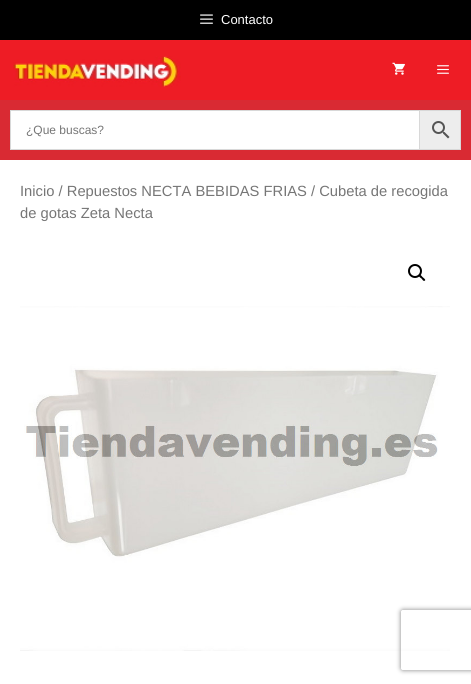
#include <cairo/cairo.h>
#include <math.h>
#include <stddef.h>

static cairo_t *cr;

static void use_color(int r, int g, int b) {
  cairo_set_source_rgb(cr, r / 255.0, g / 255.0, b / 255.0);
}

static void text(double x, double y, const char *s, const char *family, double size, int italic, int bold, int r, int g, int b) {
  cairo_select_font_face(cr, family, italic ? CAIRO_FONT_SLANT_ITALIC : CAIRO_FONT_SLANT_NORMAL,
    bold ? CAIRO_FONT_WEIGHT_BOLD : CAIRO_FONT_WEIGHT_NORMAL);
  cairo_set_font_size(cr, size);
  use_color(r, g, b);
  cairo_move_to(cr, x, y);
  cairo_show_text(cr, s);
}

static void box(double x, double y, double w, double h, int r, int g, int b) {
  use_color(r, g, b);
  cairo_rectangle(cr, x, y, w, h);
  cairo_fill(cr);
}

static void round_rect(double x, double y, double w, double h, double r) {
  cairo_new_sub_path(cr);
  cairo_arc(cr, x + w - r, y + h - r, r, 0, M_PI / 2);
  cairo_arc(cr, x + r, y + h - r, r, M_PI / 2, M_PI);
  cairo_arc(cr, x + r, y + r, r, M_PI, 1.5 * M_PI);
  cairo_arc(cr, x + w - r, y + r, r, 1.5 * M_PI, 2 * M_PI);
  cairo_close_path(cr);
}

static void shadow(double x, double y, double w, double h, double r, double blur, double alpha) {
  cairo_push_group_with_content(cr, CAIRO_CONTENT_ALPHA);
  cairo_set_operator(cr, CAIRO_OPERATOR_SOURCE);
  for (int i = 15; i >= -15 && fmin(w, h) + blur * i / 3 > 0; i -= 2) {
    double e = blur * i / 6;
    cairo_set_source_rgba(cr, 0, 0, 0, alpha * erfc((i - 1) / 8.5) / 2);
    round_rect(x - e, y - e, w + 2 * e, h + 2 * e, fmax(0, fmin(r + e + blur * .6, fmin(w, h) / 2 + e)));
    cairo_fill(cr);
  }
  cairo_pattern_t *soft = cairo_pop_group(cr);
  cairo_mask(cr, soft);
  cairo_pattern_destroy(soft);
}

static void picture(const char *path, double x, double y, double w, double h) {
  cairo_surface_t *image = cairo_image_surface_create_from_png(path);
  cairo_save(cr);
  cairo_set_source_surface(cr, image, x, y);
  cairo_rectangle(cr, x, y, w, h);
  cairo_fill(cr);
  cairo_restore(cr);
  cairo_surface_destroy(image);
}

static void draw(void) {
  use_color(255, 255, 255);
  cairo_paint(cr);
  box(0, 0, 471, 40, 0, 0, 0);
  picture("img_01.png", 200, 14, 13, 10);
  box(0, 40, 471, 60, 238, 28, 37);
  picture("img_02.png", 13, 56, 168, 31);
  picture("img_03.png", 392, 62, 13, 13);
  picture("img_04.png", 437, 65, 12, 9);
  box(0, 100, 471, 60, 217, 42, 51);
  box(11, 111, 408, 38, 255, 255, 255);
  use_color(237, 237, 237);
  cairo_rectangle(cr, 419.5, 110.5, 41, 39);
  cairo_fill_preserve(cr);
  use_color(216, 216, 216);
  cairo_set_line_width(cr, 1);
  cairo_stroke(cr);
  cairo_rectangle(cr, 10.5, 110.5, 409, 39);
  cairo_stroke(cr);
  picture("img_05.png", 432, 121, 18, 18);
  cairo_arc(cr, 415, 271, 6, 0, 2 * M_PI);
  use_color(0, 0, 0);
  cairo_set_line_width(cr, 2);
  cairo_stroke(cr);
  cairo_new_path(cr);
  cairo_move_to(cr, 419, 275);
  cairo_curve_to(cr, 420.5, 274, 422, 276.5, 422.5, 277);
  cairo_curve_to(cr, 423.5, 278, 426, 279.5, 425, 280.5);
  cairo_curve_to(cr, 423.5, 282, 422, 279, 421.5, 278.5);
  cairo_curve_to(cr, 420.5, 278, 418, 276, 419, 275);
  cairo_close_path(cr);
  cairo_fill(cr);
  picture("img_06.png", 20, 306, 430, 345);
  cairo_save(cr);
  cairo_set_fill_rule(cr, CAIRO_FILL_RULE_EVEN_ODD);
  cairo_new_path(cr);
  cairo_move_to(cr, 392, 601);
  cairo_line_to(cr, 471, 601);
  cairo_line_to(cr, 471, 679);
  cairo_line_to(cr, 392, 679);
  cairo_close_path(cr);
  cairo_move_to(cr, 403, 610);
  cairo_line_to(cr, 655, 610);
  cairo_curve_to(cr, 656, 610, 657, 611, 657, 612);
  cairo_line_to(cr, 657, 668);
  cairo_curve_to(cr, 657, 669, 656, 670, 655, 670);
  cairo_line_to(cr, 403, 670);
  cairo_curve_to(cr, 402, 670, 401, 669, 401, 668);
  cairo_line_to(cr, 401, 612);
  cairo_curve_to(cr, 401, 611, 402, 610, 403, 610);
  cairo_close_path(cr);
  cairo_clip(cr);
  use_color(128, 128, 128);
  shadow(401, 610, 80, 60, 2, 2.5, 1);
  cairo_restore(cr);
  text(221, 24, "Contacto", "Liberation Sans", 13, 0, 0, 255, 255, 255);
  text(26, 134, "¿Que buscas?", "Liberation Sans", 12, 0, 0, 118, 118, 118);
  text(20, 196, "Inicio / Repuestos NECTA BEBIDAS FRIAS / Cubeta de recogida", "Liberation Sans", 14.75, 0, 0, 118, 118, 118);
  text(20, 218, "de gotas Zeta Necta", "Liberation Sans", 14.75, 0, 0, 118, 118, 118);
}

int main(void) {
  cairo_surface_t *surface = cairo_image_surface_create(CAIRO_FORMAT_RGB24, 471, 684);
  cr = cairo_create(surface);
  cairo_font_options_t *options = cairo_font_options_create();
  cairo_font_options_set_hint_metrics(options, CAIRO_HINT_METRICS_OFF);
  cairo_font_options_set_hint_style(options, CAIRO_HINT_STYLE_NONE);
  cairo_set_font_options(cr, options);
  cairo_set_miter_limit(cr, 4);
  draw();
  cairo_surface_write_to_png(surface, "out.png");
  cairo_font_options_destroy(options);
  cairo_destroy(cr);
  cairo_surface_destroy(surface);
  return 0;
}
